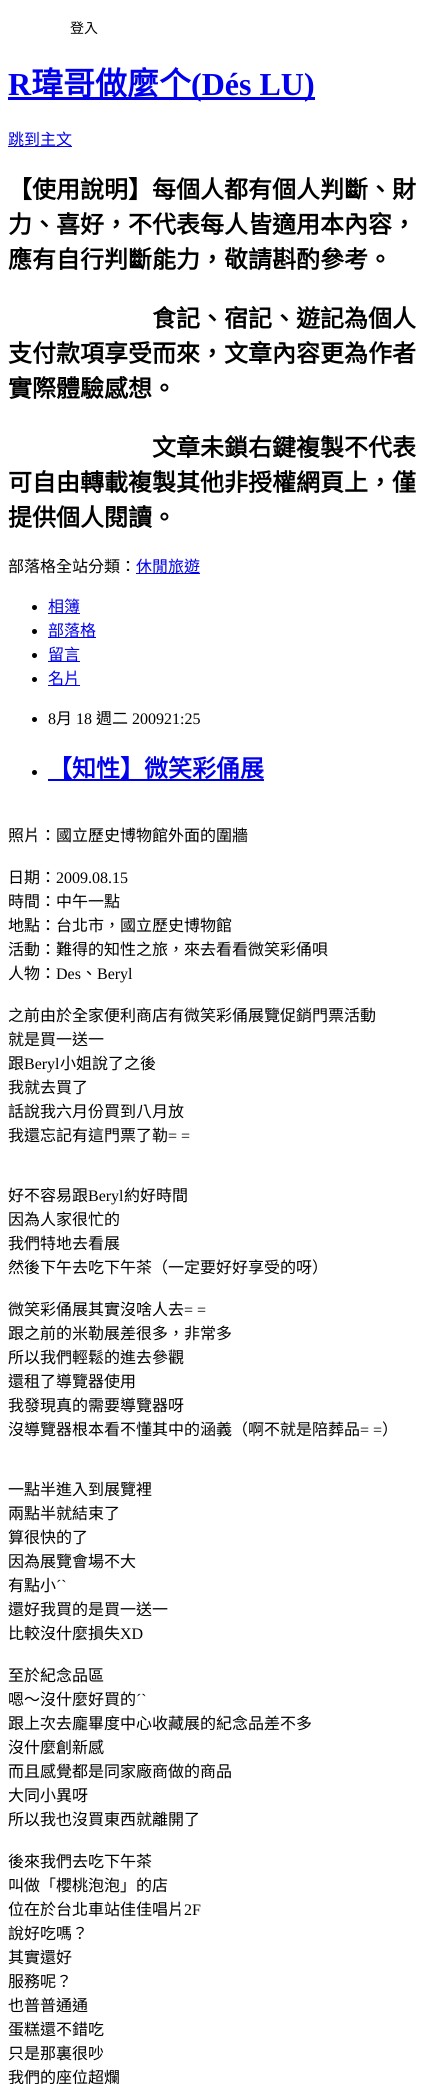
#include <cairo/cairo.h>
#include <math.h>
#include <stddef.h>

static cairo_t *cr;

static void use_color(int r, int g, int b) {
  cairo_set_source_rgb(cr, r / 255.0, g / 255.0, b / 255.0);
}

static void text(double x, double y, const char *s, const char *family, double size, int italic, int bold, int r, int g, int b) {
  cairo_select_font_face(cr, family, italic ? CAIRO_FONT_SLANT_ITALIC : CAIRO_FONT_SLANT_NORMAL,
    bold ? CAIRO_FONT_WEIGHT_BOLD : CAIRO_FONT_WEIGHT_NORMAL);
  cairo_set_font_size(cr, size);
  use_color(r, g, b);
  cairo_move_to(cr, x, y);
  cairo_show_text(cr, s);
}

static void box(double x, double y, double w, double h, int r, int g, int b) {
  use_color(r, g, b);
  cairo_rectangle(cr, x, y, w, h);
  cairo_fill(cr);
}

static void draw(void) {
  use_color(255, 255, 255);
  cairo_paint(cr);
  box(8, 97, 307, 3, 0, 0, 238);
  box(8, 146, 64, 1, 0, 0, 238);
  box(136, 573, 64, 1, 0, 0, 238);
  use_color(0, 0, 0);
  cairo_arc(cr, 34.5, 607.5, 2.5, 0, 2 * M_PI);
  cairo_fill(cr);
  box(48, 613, 32, 1, 0, 0, 238);
  use_color(0, 0, 0);
  cairo_arc(cr, 34.5, 631.5, 2.5, 0, 2 * M_PI);
  cairo_fill(cr);
  box(48, 637, 48, 1, 0, 0, 238);
  use_color(0, 0, 0);
  cairo_arc(cr, 34.5, 655.5, 2.5, 0, 2 * M_PI);
  cairo_fill(cr);
  box(48, 661, 32, 1, 0, 0, 238);
  use_color(0, 0, 0);
  cairo_arc(cr, 34.5, 679.5, 2.5, 0, 2 * M_PI);
  cairo_fill(cr);
  box(48, 685, 32, 1, 0, 0, 238);
  use_color(0, 0, 0);
  cairo_arc(cr, 34.5, 719.5, 2.5, 0, 2 * M_PI);
  cairo_fill(cr);
  cairo_arc(cr, 34.5, 772.5, 2.5, 0, 2 * M_PI);
  cairo_fill(cr);
  box(48, 779, 216, 2, 0, 0, 238);
  text(70, 33, "登入", "Noto Sans CJK TC", 14, 0, 0, 0, 0, 0);
  text(8, 95, "R", "Liberation Serif", 32, 0, 1, 0, 0, 238);
  text(31, 95, "瑋哥做麼个", "Noto Sans CJK TC", 32, 0, 1, 0, 0, 238);
  text(191, 95, "(Dés LU)", "Liberation Serif", 32, 0, 1, 0, 0, 238);
  text(8, 145, "跳到主文", "Noto Sans CJK TC", 16, 0, 0, 0, 0, 238);
  text(8, 198, "【使用說明】每個人都有個人判斷、財", "Noto Sans CJK TC", 24, 0, 1, 0, 0, 0);
  text(8, 233, "力、喜好，不代表每人皆適用本內容，", "Noto Sans CJK TC", 24, 0, 1, 0, 0, 0);
  text(8, 268, "應有自行判斷能力，敬請斟酌參考。", "Noto Sans CJK TC", 24, 0, 1, 0, 0, 0);
  text(152, 327, "食記、宿記、遊記為個人", "Noto Sans CJK TC", 24, 0, 1, 0, 0, 0);
  text(8, 362, "支付款項享受而來，文章內容更為作者", "Noto Sans CJK TC", 24, 0, 1, 0, 0, 0);
  text(8, 397, "實際體驗感想。", "Noto Sans CJK TC", 24, 0, 1, 0, 0, 0);
  text(152, 456, "文章未鎖右鍵複製不代表", "Noto Sans CJK TC", 24, 0, 1, 0, 0, 0);
  text(8, 491, "可自由轉載複製其他非授權網頁上，僅", "Noto Sans CJK TC", 24, 0, 1, 0, 0, 0);
  text(8, 526, "提供個人閱讀。", "Noto Sans CJK TC", 24, 0, 1, 0, 0, 0);
  text(8, 572, "部落格全站分類：", "Noto Sans CJK TC", 16, 0, 0, 0, 0, 0);
  text(136, 572, "休閒旅遊", "Noto Sans CJK TC", 16, 0, 0, 0, 0, 238);
  text(48, 612, "相簿", "Noto Sans CJK TC", 16, 0, 0, 0, 0, 238);
  text(48, 636, "部落格", "Noto Sans CJK TC", 16, 0, 0, 0, 0, 238);
  text(48, 660, "留言", "Noto Sans CJK TC", 16, 0, 0, 0, 0, 238);
  text(48, 684, "名片", "Noto Sans CJK TC", 16, 0, 0, 0, 0, 238);
  text(48, 724, "8", "Liberation Serif", 16, 0, 0, 0, 0, 0);
  text(56, 724, "月", "Noto Sans CJK TC", 16, 0, 0, 0, 0, 0);
  text(76, 724, "18", "Liberation Serif", 16, 0, 0, 0, 0, 0);
  text(96, 724, "週二", "Noto Sans CJK TC", 16, 0, 0, 0, 0, 0);
  text(132, 724, "200921:25", "Liberation Serif", 16, 0, 0, 0, 0, 0);
  text(48, 777, "【知性】微笑彩俑展", "Noto Sans CJK TC", 24, 0, 1, 0, 0, 238);
  text(8, 841, "照片：國立歷史博物館外面的圍牆", "Noto Sans CJK TC", 16, 0, 0, 0, 0, 0);
  text(8, 883, "日期：", "Noto Sans CJK TC", 16, 0, 0, 0, 0, 0);
  text(56, 883, "2009.08.15", "Liberation Serif", 16, 0, 0, 0, 0, 0);
  text(8, 907, "時間：中午一點", "Noto Sans CJK TC", 16, 0, 0, 0, 0, 0);
  text(8, 931, "地點：台北市，國立歷史博物館", "Noto Sans CJK TC", 16, 0, 0, 0, 0, 0);
  text(8, 955, "活動：難得的知性之旅，來去看看微笑彩俑唄", "Noto Sans CJK TC", 16, 0, 0, 0, 0, 0);
  text(8, 979, "人物：", "Noto Sans CJK TC", 16, 0, 0, 0, 0, 0);
  text(56, 979, "Des", "Liberation Serif", 16, 0, 0, 0, 0, 0);
  text(81, 979, "、", "Noto Sans CJK TC", 16, 0, 0, 0, 0, 0);
  text(97, 979, "Beryl", "Liberation Serif", 16, 0, 0, 0, 0, 0);
  text(8, 1021, "之前由於全家便利商店有微笑彩俑展覽促銷門票活動", "Noto Sans CJK TC", 16, 0, 0, 0, 0, 0);
  text(8, 1045, "就是買一送一", "Noto Sans CJK TC", 16, 0, 0, 0, 0, 0);
  text(8, 1069, "跟", "Noto Sans CJK TC", 16, 0, 0, 0, 0, 0);
  text(24, 1069, "Beryl", "Liberation Serif", 16, 0, 0, 0, 0, 0);
  text(60, 1069, "小姐說了之後", "Noto Sans CJK TC", 16, 0, 0, 0, 0, 0);
  text(8, 1093, "我就去買了", "Noto Sans CJK TC", 16, 0, 0, 0, 0, 0);
  text(8, 1117, "話說我六月份買到八月放", "Noto Sans CJK TC", 16, 0, 0, 0, 0, 0);
  text(8, 1141, "我還忘記有這門票了勒", "Noto Sans CJK TC", 16, 0, 0, 0, 0, 0);
  text(168, 1141, "= =", "Liberation Serif", 16, 0, 0, 0, 0, 0);
  text(8, 1201, "好不容易跟", "Noto Sans CJK TC", 16, 0, 0, 0, 0, 0);
  text(88, 1201, "Beryl", "Liberation Serif", 16, 0, 0, 0, 0, 0);
  text(124, 1201, "約好時間", "Noto Sans CJK TC", 16, 0, 0, 0, 0, 0);
  text(8, 1225, "因為人家很忙的", "Noto Sans CJK TC", 16, 0, 0, 0, 0, 0);
  text(8, 1249, "我們特地去看展", "Noto Sans CJK TC", 16, 0, 0, 0, 0, 0);
  text(8, 1273, "然後下午去吃下午茶（一定要好好享受的呀）", "Noto Sans CJK TC", 16, 0, 0, 0, 0, 0);
  text(8, 1315, "微笑彩俑展其實沒啥人去", "Noto Sans CJK TC", 16, 0, 0, 0, 0, 0);
  text(184, 1315, "= =", "Liberation Serif", 16, 0, 0, 0, 0, 0);
  text(8, 1339, "跟之前的米勒展差很多，非常多", "Noto Sans CJK TC", 16, 0, 0, 0, 0, 0);
  text(8, 1363, "所以我們輕鬆的進去參觀", "Noto Sans CJK TC", 16, 0, 0, 0, 0, 0);
  text(8, 1387, "還租了導覽器使用", "Noto Sans CJK TC", 16, 0, 0, 0, 0, 0);
  text(8, 1411, "我發現真的需要導覽器呀", "Noto Sans CJK TC", 16, 0, 0, 0, 0, 0);
  text(8, 1435, "沒導覽器根本看不懂其中的涵義（啊不就是陪葬品", "Noto Sans CJK TC", 16, 0, 0, 0, 0, 0);
  text(360, 1435, "= =", "Liberation Serif", 16, 0, 0, 0, 0, 0);
  text(382, 1435, "）", "Noto Sans CJK TC", 16, 0, 0, 0, 0, 0);
  text(8, 1495, "一點半進入到展覽裡", "Noto Sans CJK TC", 16, 0, 0, 0, 0, 0);
  text(8, 1519, "兩點半就結束了", "Noto Sans CJK TC", 16, 0, 0, 0, 0, 0);
  text(8, 1543, "算很快的了", "Noto Sans CJK TC", 16, 0, 0, 0, 0, 0);
  text(8, 1567, "因為展覽會場不大", "Noto Sans CJK TC", 16, 0, 0, 0, 0, 0);
  text(8, 1591, "有點小", "Noto Sans CJK TC", 16, 0, 0, 0, 0, 0);
  text(56, 1591, "ˊˋ", "Liberation Serif", 16, 0, 0, 0, 0, 0);
  text(8, 1615, "還好我買的是買一送一", "Noto Sans CJK TC", 16, 0, 0, 0, 0, 0);
  text(8, 1639, "比較沒什麼損失", "Noto Sans CJK TC", 16, 0, 0, 0, 0, 0);
  text(120, 1639, "XD", "Liberation Serif", 16, 0, 0, 0, 0, 0);
  text(8, 1681, "至於紀念品區", "Noto Sans CJK TC", 16, 0, 0, 0, 0, 0);
  text(8, 1705, "嗯～沒什麼好買的", "Noto Sans CJK TC", 16, 0, 0, 0, 0, 0);
  text(136, 1705, "ˊˋ", "Liberation Serif", 16, 0, 0, 0, 0, 0);
  text(8, 1729, "跟上次去龐畢度中心收藏展的紀念品差不多", "Noto Sans CJK TC", 16, 0, 0, 0, 0, 0);
  text(8, 1753, "沒什麼創新感", "Noto Sans CJK TC", 16, 0, 0, 0, 0, 0);
  text(8, 1777, "而且感覺都是同家廠商做的商品", "Noto Sans CJK TC", 16, 0, 0, 0, 0, 0);
  text(8, 1801, "大同小異呀", "Noto Sans CJK TC", 16, 0, 0, 0, 0, 0);
  text(8, 1825, "所以我也沒買東西就離開了", "Noto Sans CJK TC", 16, 0, 0, 0, 0, 0);
  text(8, 1867, "後來我們去吃下午茶", "Noto Sans CJK TC", 16, 0, 0, 0, 0, 0);
  text(8, 1891, "叫做「櫻桃泡泡」的店", "Noto Sans CJK TC", 16, 0, 0, 0, 0, 0);
  text(8, 1915, "位在於台北車站佳佳唱片", "Noto Sans CJK TC", 16, 0, 0, 0, 0, 0);
  text(184, 1915, "2F", "Liberation Serif", 16, 0, 0, 0, 0, 0);
  text(8, 1939, "說好吃嗎？", "Noto Sans CJK TC", 16, 0, 0, 0, 0, 0);
  text(8, 1963, "其實還好", "Noto Sans CJK TC", 16, 0, 0, 0, 0, 0);
  text(8, 1987, "服務呢？", "Noto Sans CJK TC", 16, 0, 0, 0, 0, 0);
  text(8, 2011, "也普普通通", "Noto Sans CJK TC", 16, 0, 0, 0, 0, 0);
  text(8, 2035, "蛋糕還不錯吃", "Noto Sans CJK TC", 16, 0, 0, 0, 0, 0);
  text(8, 2059, "只是那裏很吵", "Noto Sans CJK TC", 16, 0, 0, 0, 0, 0);
  text(8, 2083, "我們的座位超爛", "Noto Sans CJK TC", 16, 0, 0, 0, 0, 0);
}

int main(void) {
  cairo_surface_t *surface = cairo_image_surface_create(CAIRO_FORMAT_RGB24, 445, 2084);
  cr = cairo_create(surface);
  cairo_font_options_t *options = cairo_font_options_create();
  cairo_font_options_set_hint_metrics(options, CAIRO_HINT_METRICS_OFF);
  cairo_font_options_set_hint_style(options, CAIRO_HINT_STYLE_NONE);
  cairo_set_font_options(cr, options);
  cairo_set_miter_limit(cr, 4);
  draw();
  cairo_surface_write_to_png(surface, "out.png");
  cairo_font_options_destroy(options);
  cairo_destroy(cr);
  cairo_surface_destroy(surface);
  return 0;
}
